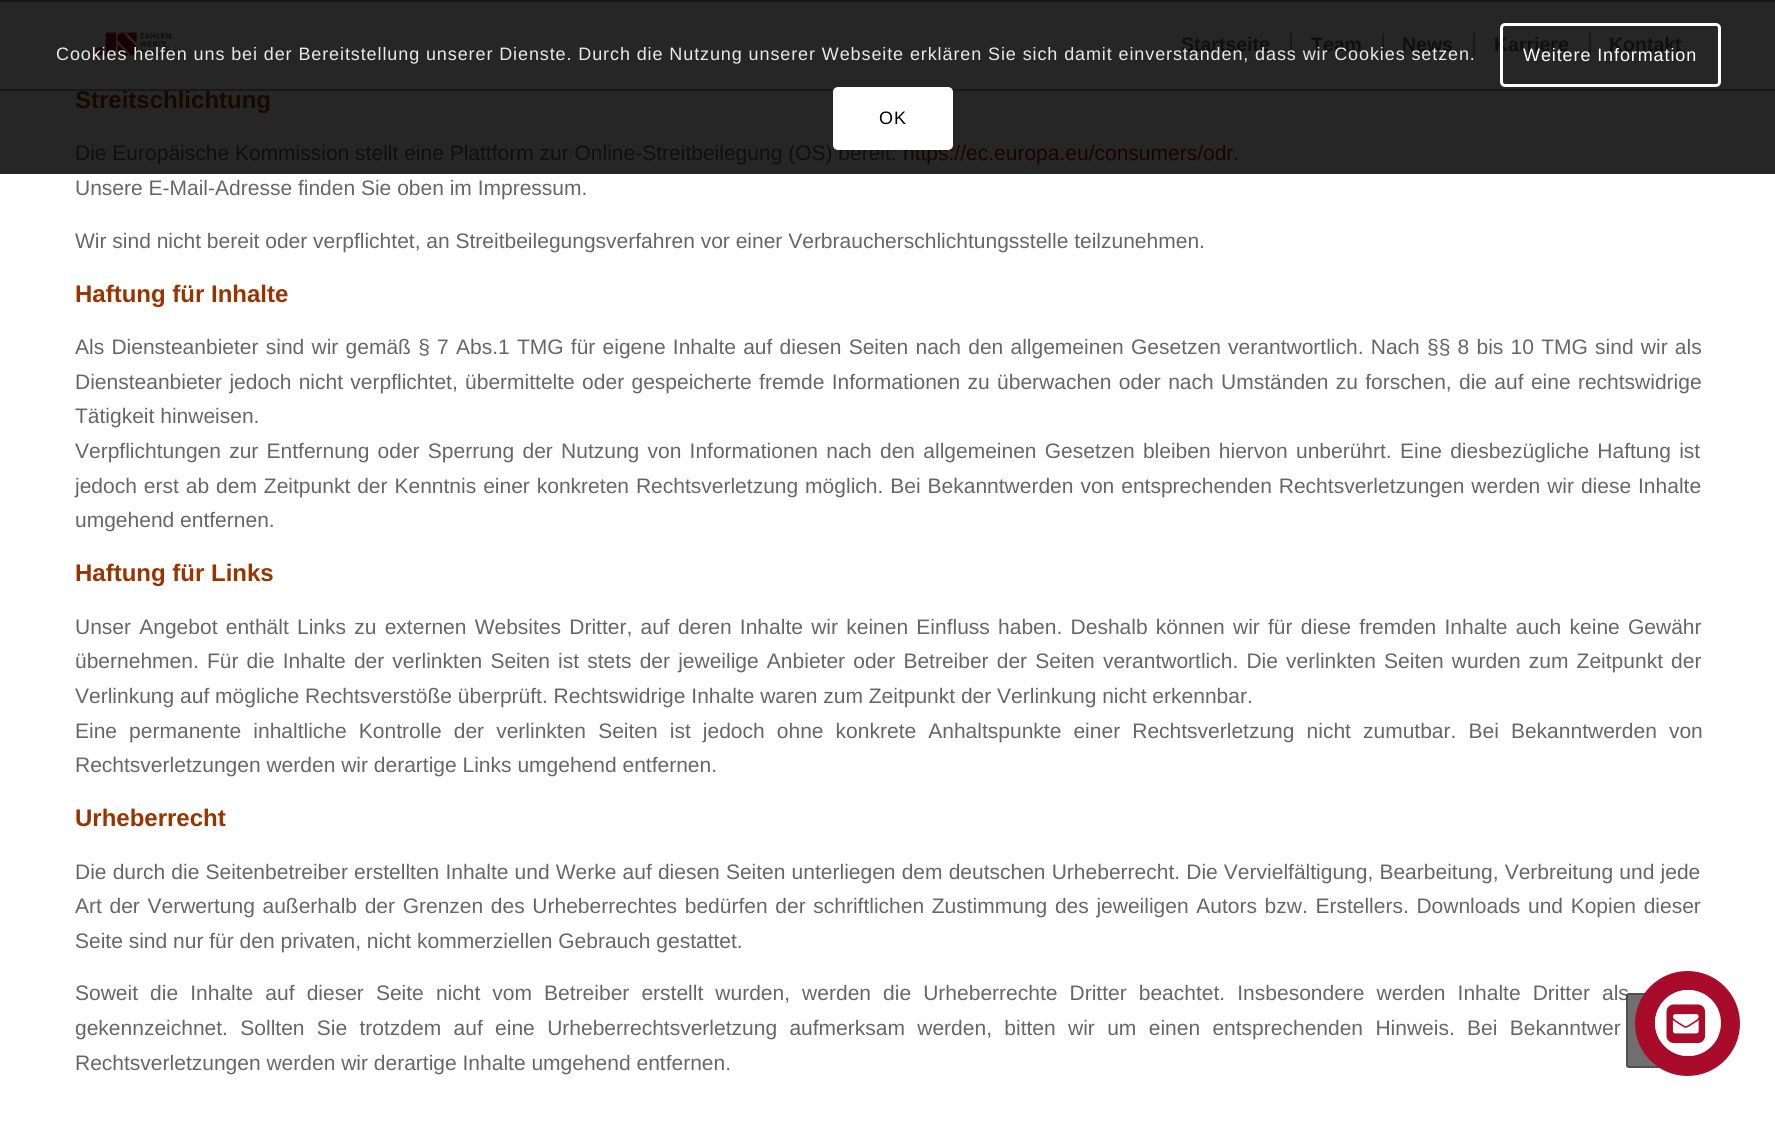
#include <cairo/cairo.h>
#include <math.h>
#include <stddef.h>

static cairo_t *cr;

static void use_color(int r, int g, int b) {
  cairo_set_source_rgb(cr, r / 255.0, g / 255.0, b / 255.0);
}

static void text(double x, double y, const char *s, const char *family, double size, int italic, int bold, int r, int g, int b) {
  cairo_select_font_face(cr, family, italic ? CAIRO_FONT_SLANT_ITALIC : CAIRO_FONT_SLANT_NORMAL,
    bold ? CAIRO_FONT_WEIGHT_BOLD : CAIRO_FONT_WEIGHT_NORMAL);
  cairo_set_font_size(cr, size);
  use_color(r, g, b);
  cairo_move_to(cr, x, y);
  cairo_show_text(cr, s);
}

static void spaced_text(double x, double y, const char *s, double letter, double word) {
  cairo_move_to(cr, x, y);
  while (*s) {
    char ch[5] = {0};
    int n = 0;
    do ch[n++] = *s++; while ((*s & 0xC0) == 0x80);
    cairo_show_text(cr, ch);
    cairo_rel_move_to(cr, letter + word * (*ch == ' '), 0);
  }
}

static void box(double x, double y, double w, double h, int r, int g, int b) {
  use_color(r, g, b);
  cairo_rectangle(cr, x, y, w, h);
  cairo_fill(cr);
}

static void round_rect(double x, double y, double w, double h, double r) {
  cairo_new_sub_path(cr);
  cairo_arc(cr, x + w - r, y + h - r, r, 0, M_PI / 2);
  cairo_arc(cr, x + r, y + h - r, r, M_PI / 2, M_PI);
  cairo_arc(cr, x + r, y + r, r, M_PI, 1.5 * M_PI);
  cairo_arc(cr, x + w - r, y + r, r, 1.5 * M_PI, 2 * M_PI);
  cairo_close_path(cr);
}

static void picture(const char *path, double x, double y, double w, double h) {
  cairo_surface_t *image = cairo_image_surface_create_from_png(path);
  cairo_save(cr);
  cairo_set_source_surface(cr, image, x, y);
  cairo_rectangle(cr, x, y, w, h);
  cairo_fill(cr);
  cairo_restore(cr);
  cairo_surface_destroy(image);
}

static void draw(void) {
  use_color(255, 255, 255);
  cairo_paint(cr);
  box(0, 0, 1775, 2, 23, 23, 23);
  box(0, 2, 1775, 87, 38, 38, 38);
  picture("img_01.png", 94, 32, 85, 24);
  box(1290, 33, 2, 23, 23, 23, 23);
  box(1382, 33, 2, 23, 23, 23, 23);
  box(1473, 33, 2, 23, 23, 23, 23);
  box(1589, 33, 2, 23, 23, 23, 23);
  box(0, 91, 1775, 83, 38, 38, 38);
  text(1181, 51, "Startseite", "Liberation Sans", 19.5, 0, 1, 15, 15, 15);
  text(1311, 51, "Team", "Liberation Sans", 19.5, 0, 1, 15, 15, 15);
  text(1402, 51, "News", "Liberation Sans", 19.5, 0, 1, 15, 15, 15);
  text(1494, 51, "Karriere", "Liberation Sans", 19.5, 0, 1, 15, 15, 15);
  text(1609, 51, "Kontakt", "Liberation Sans", 19.5, 0, 1, 15, 15, 15);
  text(75, 108, "Streitschlichtung", "Liberation Sans", 24, 0, 1, 23, 8, 0);
  box(0, 89, 1775, 2, 23, 23, 23);
  text(75, 160, "Die Europäische Kommission stellt eine Plattform zur Online-Streitbeilegung (OS) bereit:", "Liberation Sans", 21, 0, 0, 15, 15, 15);
  text(903, 160, "https://ec.europa.eu/consumers/odr", "Liberation Sans", 21, 0, 0, 25, 2, 6);
  text(1233, 160, ".", "Liberation Sans", 21, 0, 0, 15, 15, 15);
  text(75, 195, "Unsere E-Mail-Adresse finden Sie oben im Impressum.", "Liberation Sans", 21, 0, 0, 102, 102, 102);
  text(75, 248, "Wir sind nicht bereit oder verpflichtet, an Streitbeilegungsverfahren vor einer Verbraucherschlichtungsstelle teilzunehmen.", "Liberation Sans", 21, 0, 0, 102, 102, 102);
  text(75, 302, "Haftung für Inhalte", "Liberation Sans", 24, 0, 1, 153, 51, 0);
  cairo_select_font_face(cr, "Liberation Sans", CAIRO_FONT_SLANT_NORMAL, CAIRO_FONT_WEIGHT_NORMAL);
  cairo_set_font_size(cr, 21);
  use_color(102, 102, 102);
  spaced_text(75, 354, "Als Diensteanbieter sind wir gemäß § 7 Abs.1 TMG für eigene Inhalte auf diesen Seiten nach den allgemeinen Gesetzen verantwortlich. Nach §§ 8 bis 10 TMG sind wir als", 0, 1.4);
  spaced_text(75, 389, "Diensteanbieter jedoch nicht verpflichtet, übermittelte oder gespeicherte fremde Informationen zu überwachen oder nach Umständen zu forschen, die auf eine rechtswidrige", 0, 1.5);
  text(75, 423, "Tätigkeit hinweisen.", "Liberation Sans", 21, 0, 0, 102, 102, 102);
  spaced_text(75, 458, "Verpflichtungen zur Entfernung oder Sperrung der Nutzung von Informationen nach den allgemeinen Gesetzen bleiben hiervon unberührt. Eine diesbezügliche Haftung ist", 0, 2.4);
  spaced_text(75, 493, "jedoch erst ab dem Zeitpunkt der Kenntnis einer konkreten Rechtsverletzung möglich. Bei Bekanntwerden von entsprechenden Rechtsverletzungen werden wir diese Inhalte", 0, 1.1);
  text(75, 527, "umgehend entfernen.", "Liberation Sans", 21, 0, 0, 102, 102, 102);
  text(75, 581, "Haftung für Links", "Liberation Sans", 24, 0, 1, 153, 51, 0);
  cairo_select_font_face(cr, "Liberation Sans", CAIRO_FONT_SLANT_NORMAL, CAIRO_FONT_WEIGHT_NORMAL);
  cairo_set_font_size(cr, 21);
  use_color(102, 102, 102);
  spaced_text(75, 634, "Unser Angebot enthält Links zu externen Websites Dritter, auf deren Inhalte wir keinen Einfluss haben. Deshalb können wir für diese fremden Inhalte auch keine Gewähr", 0, 2.4);
  spaced_text(75, 668, "übernehmen. Für die Inhalte der verlinkten Seiten ist stets der jeweilige Anbieter oder Betreiber der Seiten verantwortlich. Die verlinkten Seiten wurden zum Zeitpunkt der", 0, 2.3);
  text(75, 703, "Verlinkung auf mögliche Rechtsverstöße überprüft. Rechtswidrige Inhalte waren zum Zeitpunkt der Verlinkung nicht erkennbar.", "Liberation Sans", 21, 0, 0, 102, 102, 102);
  spaced_text(75, 738, "Eine permanente inhaltliche Kontrolle der verlinkten Seiten ist jedoch ohne konkrete Anhaltspunkte einer Rechtsverletzung nicht zumutbar. Bei Bekanntwerden von", 0, 6.25);
  text(75, 772, "Rechtsverletzungen werden wir derartige Links umgehend entfernen.", "Liberation Sans", 21, 0, 0, 102, 102, 102);
  text(75, 826, "Urheberrecht", "Liberation Sans", 24, 0, 1, 153, 51, 0);
  cairo_select_font_face(cr, "Liberation Sans", CAIRO_FONT_SLANT_NORMAL, CAIRO_FONT_WEIGHT_NORMAL);
  cairo_set_font_size(cr, 21);
  use_color(102, 102, 102);
  spaced_text(75, 879, "Die durch die Seitenbetreiber erstellten Inhalte und Werke auf diesen Seiten unterliegen dem deutschen Urheberrecht. Die Vervielfältigung, Bearbeitung, Verbreitung und jede", 0, 0.3);
  spaced_text(75, 913, "Art der Verwertung außerhalb der Grenzen des Urheberrechtes bedürfen der schriftlichen Zustimmung des jeweiligen Autors bzw. Erstellers. Downloads und Kopien dieser", 0, 1.8);
  text(75, 948, "Seite sind nur für den privaten, nicht kommerziellen Gebrauch gestattet.", "Liberation Sans", 21, 0, 0, 102, 102, 102);
  spaced_text(75, 1000, "Soweit die Inhalte auf dieser Seite nicht vom Betreiber erstellt wurden, werden die Urheberrechte Dritter beachtet. Insbesondere werden Inhalte Dritter als", 0, 6.25);
  spaced_text(75, 1035, "gekennzeichnet. Sollten Sie trotzdem auf eine Urheberrechtsverletzung aufmerksam werden, bitten wir um einen entsprechenden Hinweis. Bei Bekanntwer", 0, 6.5);
  text(75, 1070, "Rechtsverletzungen werden wir derartige Inhalte umgehend entfernen.", "Liberation Sans", 21, 0, 0, 102, 102, 102);
  cairo_set_font_size(cr, 18);
  use_color(233, 233, 233);
  spaced_text(56, 60, "Cookies helfen uns bei der Bereitstellung unserer Dienste. Durch die Nutzung unserer Webseite erklären Sie sich damit einverstanden, dass wir Cookies setzen.", 0.9, 0);
  round_rect(1501.5, 24.5, 218, 61, 3.5);
  use_color(255, 255, 255);
  cairo_set_line_width(cr, 3);
  cairo_stroke(cr);
  spaced_text(1523, 61, "Weitere Information", 0.9, 0);
  round_rect(833, 87, 120, 63, 5);
  cairo_fill(cr);
  use_color(0, 0, 0);
  spaced_text(879, 124, "OK", 0.9, 0);
  cairo_set_source_rgba(cr, 0.2, 0.2, 0.2, 0.7);
  round_rect(1626, 993, 75, 75, 3);
  cairo_fill(cr);
  round_rect(1627, 994, 73, 73, 2);
  cairo_set_source_rgba(cr, 0.267, 0.267, 0.267, 0.7);
  cairo_set_line_width(cr, 2);
  cairo_stroke(cr);
  use_color(169, 12, 43);
  cairo_arc(cr, 1687.5, 1023.5, 52.5, 0, 2 * M_PI);
  cairo_fill(cr);
  use_color(255, 255, 255);
  cairo_arc(cr, 1688, 1023, 33, 0, 2 * M_PI);
  cairo_fill(cr);
  cairo_save(cr);
  round_rect(1655, 990, 66, 66, 33);
  cairo_clip(cr);
  cairo_new_path(cr);
  cairo_move_to(cr, 1688, 990);
  cairo_line_to(cr, 1718, 990);
  cairo_line_to(cr, 1718, 1056);
  cairo_line_to(cr, 1688, 1056);
  cairo_curve_to(cr, 1670, 1056, 1655, 1041, 1655, 1023);
  cairo_curve_to(cr, 1655, 1005, 1670, 990, 1688, 990);
  cairo_close_path(cr);
  cairo_fill(cr);
  cairo_restore(cr);
  picture("img_02.png", 1666, 1004, 40, 40);
}

int main(void) {
  cairo_surface_t *surface = cairo_image_surface_create(CAIRO_FORMAT_RGB24, 1775, 1143);
  cr = cairo_create(surface);
  cairo_font_options_t *options = cairo_font_options_create();
  cairo_font_options_set_hint_metrics(options, CAIRO_HINT_METRICS_OFF);
  cairo_font_options_set_hint_style(options, CAIRO_HINT_STYLE_NONE);
  cairo_set_font_options(cr, options);
  cairo_set_miter_limit(cr, 4);
  draw();
  cairo_surface_write_to_png(surface, "out.png");
  cairo_font_options_destroy(options);
  cairo_destroy(cr);
  cairo_surface_destroy(surface);
  return 0;
}
